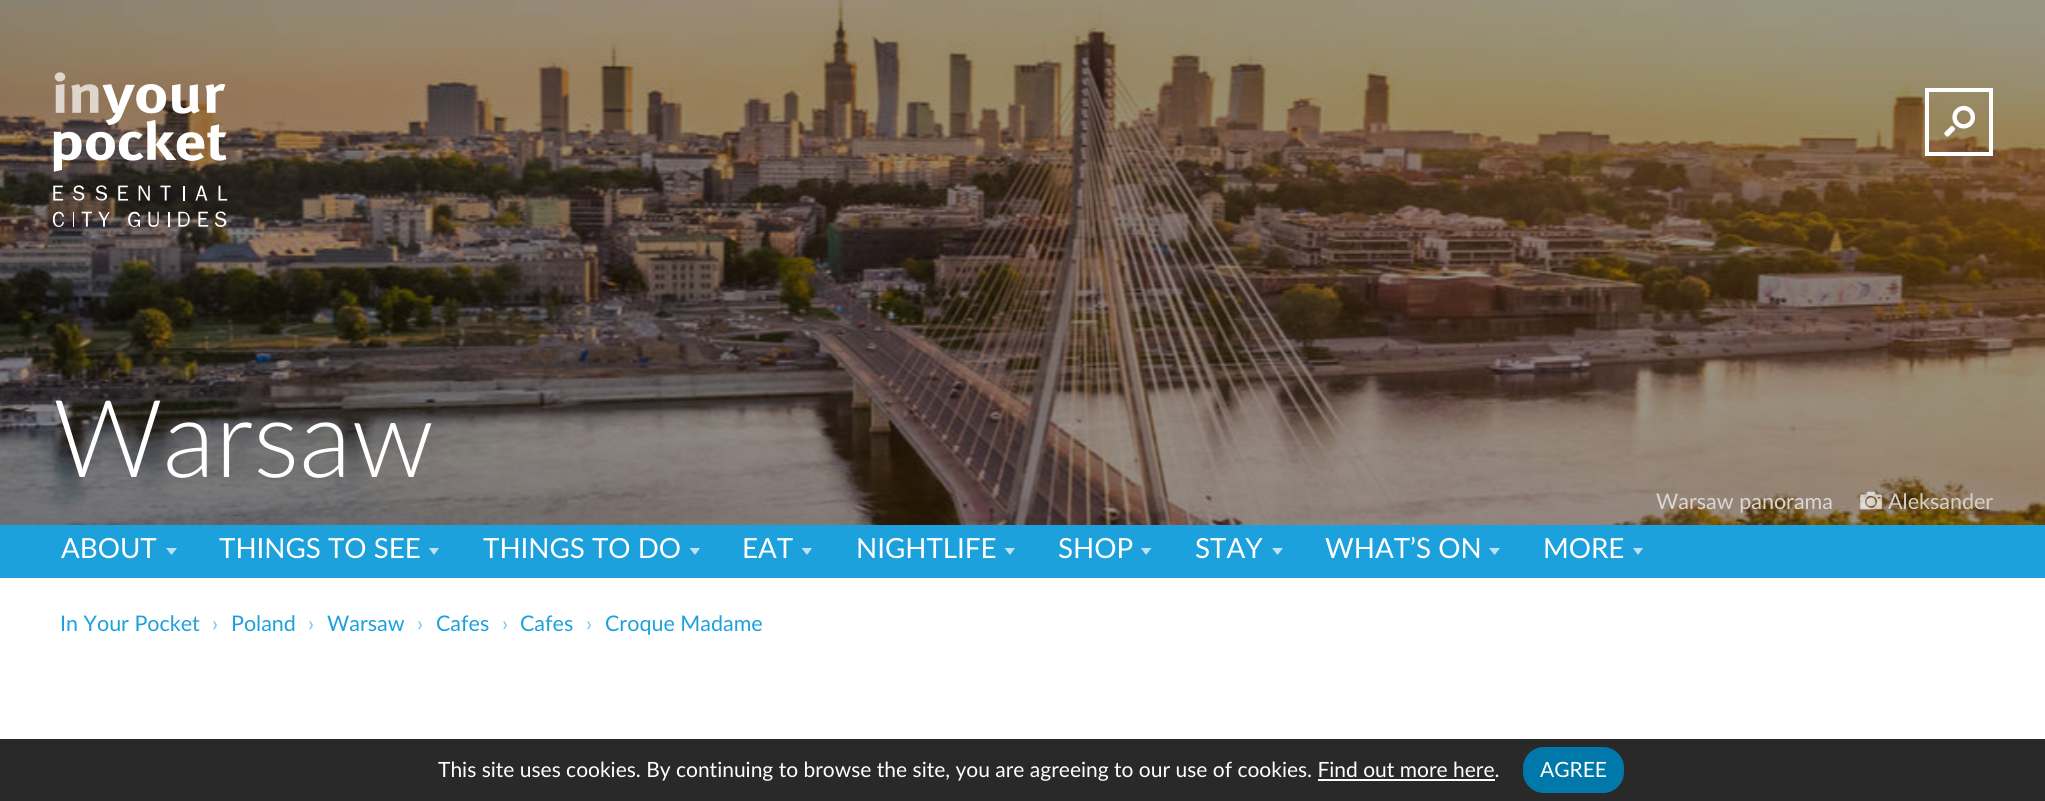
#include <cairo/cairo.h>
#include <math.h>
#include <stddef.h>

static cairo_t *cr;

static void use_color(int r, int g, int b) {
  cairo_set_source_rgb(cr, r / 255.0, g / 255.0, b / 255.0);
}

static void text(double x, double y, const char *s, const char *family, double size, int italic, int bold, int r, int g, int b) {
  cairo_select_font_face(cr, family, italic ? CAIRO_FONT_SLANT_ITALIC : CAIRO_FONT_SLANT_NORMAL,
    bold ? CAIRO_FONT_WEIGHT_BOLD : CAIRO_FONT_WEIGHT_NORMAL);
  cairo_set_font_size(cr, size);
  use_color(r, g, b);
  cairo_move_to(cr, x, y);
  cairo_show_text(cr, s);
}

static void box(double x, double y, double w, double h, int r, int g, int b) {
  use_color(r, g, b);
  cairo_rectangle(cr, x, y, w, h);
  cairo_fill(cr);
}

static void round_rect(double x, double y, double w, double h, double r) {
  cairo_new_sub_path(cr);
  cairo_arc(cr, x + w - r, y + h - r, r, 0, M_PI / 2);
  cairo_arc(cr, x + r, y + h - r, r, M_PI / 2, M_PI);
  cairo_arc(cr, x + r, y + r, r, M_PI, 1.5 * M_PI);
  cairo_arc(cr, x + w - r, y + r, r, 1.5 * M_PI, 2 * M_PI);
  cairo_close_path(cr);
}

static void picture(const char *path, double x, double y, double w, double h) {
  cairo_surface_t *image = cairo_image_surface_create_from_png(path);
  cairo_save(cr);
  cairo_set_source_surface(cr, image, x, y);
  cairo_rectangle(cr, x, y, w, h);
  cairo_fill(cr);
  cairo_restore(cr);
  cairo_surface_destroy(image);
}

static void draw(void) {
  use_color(255, 255, 255);
  cairo_paint(cr);
  picture("img_01.png", 0, 0, 2045, 525);
  picture("img_02.png", 53, 72, 175, 155);
  cairo_rectangle(cr, 1927, 90, 64, 64);
  use_color(255, 255, 255);
  cairo_set_line_width(cr, 4);
  cairo_stroke(cr);
  picture("img_03.png", 1944, 105, 31, 32);
  picture("img_04.png", 1860, 491, 22, 19);
  box(0, 525, 2045, 53, 29, 161, 220);
  use_color(187, 227, 245);
  cairo_new_path(cr);
  cairo_move_to(cr, 166, 548);
  cairo_line_to(cr, 177, 548);
  cairo_line_to(cr, 171.5, 555);
  cairo_close_path(cr);
  cairo_fill(cr);
  cairo_new_path(cr);
  cairo_move_to(cr, 429, 548);
  cairo_line_to(cr, 439, 548);
  cairo_line_to(cr, 434, 555);
  cairo_close_path(cr);
  cairo_fill(cr);
  cairo_new_path(cr);
  cairo_move_to(cr, 689.5, 548);
  cairo_line_to(cr, 700, 548);
  cairo_line_to(cr, 695, 555);
  cairo_close_path(cr);
  cairo_fill(cr);
  cairo_new_path(cr);
  cairo_move_to(cr, 801.5, 548);
  cairo_line_to(cr, 812, 548);
  cairo_line_to(cr, 807, 555);
  cairo_close_path(cr);
  cairo_fill(cr);
  cairo_new_path(cr);
  cairo_move_to(cr, 1004.5, 548);
  cairo_line_to(cr, 1015, 548);
  cairo_line_to(cr, 1010, 555);
  cairo_close_path(cr);
  cairo_fill(cr);
  cairo_new_path(cr);
  cairo_move_to(cr, 1141, 548);
  cairo_line_to(cr, 1151.5, 548);
  cairo_line_to(cr, 1146, 555);
  cairo_close_path(cr);
  cairo_fill(cr);
  cairo_new_path(cr);
  cairo_move_to(cr, 1272, 548);
  cairo_line_to(cr, 1283, 548);
  cairo_line_to(cr, 1277.5, 555);
  cairo_close_path(cr);
  cairo_fill(cr);
  cairo_new_path(cr);
  cairo_move_to(cr, 1489, 548);
  cairo_line_to(cr, 1500, 548);
  cairo_line_to(cr, 1494.5, 555);
  cairo_close_path(cr);
  cairo_fill(cr);
  cairo_new_path(cr);
  cairo_move_to(cr, 1633, 548);
  cairo_line_to(cr, 1643, 548);
  cairo_line_to(cr, 1638, 555);
  cairo_close_path(cr);
  cairo_fill(cr);
  box(0, 739, 2045, 62, 41, 41, 41);
  use_color(0, 121, 170);
  round_rect(1523, 747, 101, 46, 21);
  cairo_fill(cr);
  box(1318, 779, 177, 2, 255, 255, 255);
  text(53, 477, "Warsaw", "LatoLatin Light", 108, 0, 0, 255, 255, 255);
  text(1656, 509, "Warsaw panorama", "LatoLatin", 21.5, 0, 0, 220, 214, 208);
  text(1888, 509, "Aleksander", "LatoLatin", 21.5, 0, 0, 215, 208, 198);
  text(61, 558, "ABOUT", "LatoLatin", 27.75, 0, 0, 255, 255, 255);
  text(219, 558, "THINGS TO SEE", "LatoLatin", 27.75, 0, 0, 255, 255, 255);
  text(483, 558, "THINGS TO DO", "LatoLatin", 27.75, 0, 0, 255, 255, 255);
  text(742, 558, "EAT", "LatoLatin", 27.75, 0, 0, 255, 255, 255);
  text(856, 558, "NIGHTLIFE", "LatoLatin", 27.75, 0, 0, 255, 255, 255);
  text(1058, 558, "SHOP", "LatoLatin", 27.75, 0, 0, 255, 255, 255);
  text(1195, 558, "STAY", "LatoLatin", 27.75, 0, 0, 255, 255, 255);
  text(1325, 558, "WHAT’S ON", "LatoLatin", 27.75, 0, 0, 255, 255, 255);
  text(1543, 558, "MORE", "LatoLatin", 27.75, 0, 0, 255, 255, 255);
  text(60, 631, "In Your Pocket", "LatoLatin", 21.5, 0, 0, 29, 161, 220);
  text(212, 631, "›", "LatoLatin", 21.5, 0, 0, 119, 199, 234);
  text(231, 631, "Poland", "LatoLatin", 21.5, 0, 0, 29, 161, 220);
  text(308, 631, "›", "LatoLatin", 21.5, 0, 0, 119, 199, 234);
  text(327, 631, "Warsaw", "LatoLatin", 21.5, 0, 0, 29, 161, 220);
  text(417, 631, "›", "LatoLatin", 21.5, 0, 0, 119, 199, 234);
  text(436, 631, "Cafes", "LatoLatin", 21.5, 0, 0, 29, 161, 220);
  text(502, 631, "›", "LatoLatin", 21.5, 0, 0, 119, 199, 234);
  text(520, 631, "Cafes", "LatoLatin", 21.5, 0, 0, 29, 161, 220);
  text(586, 631, "›", "LatoLatin", 21.5, 0, 0, 119, 199, 234);
  text(605, 631, "Croque Madame", "LatoLatin", 21.5, 0, 0, 29, 161, 220);
  text(438, 777, "This site uses cookies. By continuing to browse the site, you are agreeing to our use of cookies. Find out more here.", "LatoLatin", 21, 0, 0, 255, 255, 255);
  text(1540, 777, "AGREE", "LatoLatin", 21, 0, 0, 255, 255, 255);
}

int main(void) {
  cairo_surface_t *surface = cairo_image_surface_create(CAIRO_FORMAT_RGB24, 2045, 801);
  cr = cairo_create(surface);
  cairo_font_options_t *options = cairo_font_options_create();
  cairo_font_options_set_hint_metrics(options, CAIRO_HINT_METRICS_OFF);
  cairo_font_options_set_hint_style(options, CAIRO_HINT_STYLE_NONE);
  cairo_set_font_options(cr, options);
  cairo_set_miter_limit(cr, 4);
  draw();
  cairo_surface_write_to_png(surface, "out.png");
  cairo_font_options_destroy(options);
  cairo_destroy(cr);
  cairo_surface_destroy(surface);
  return 0;
}
